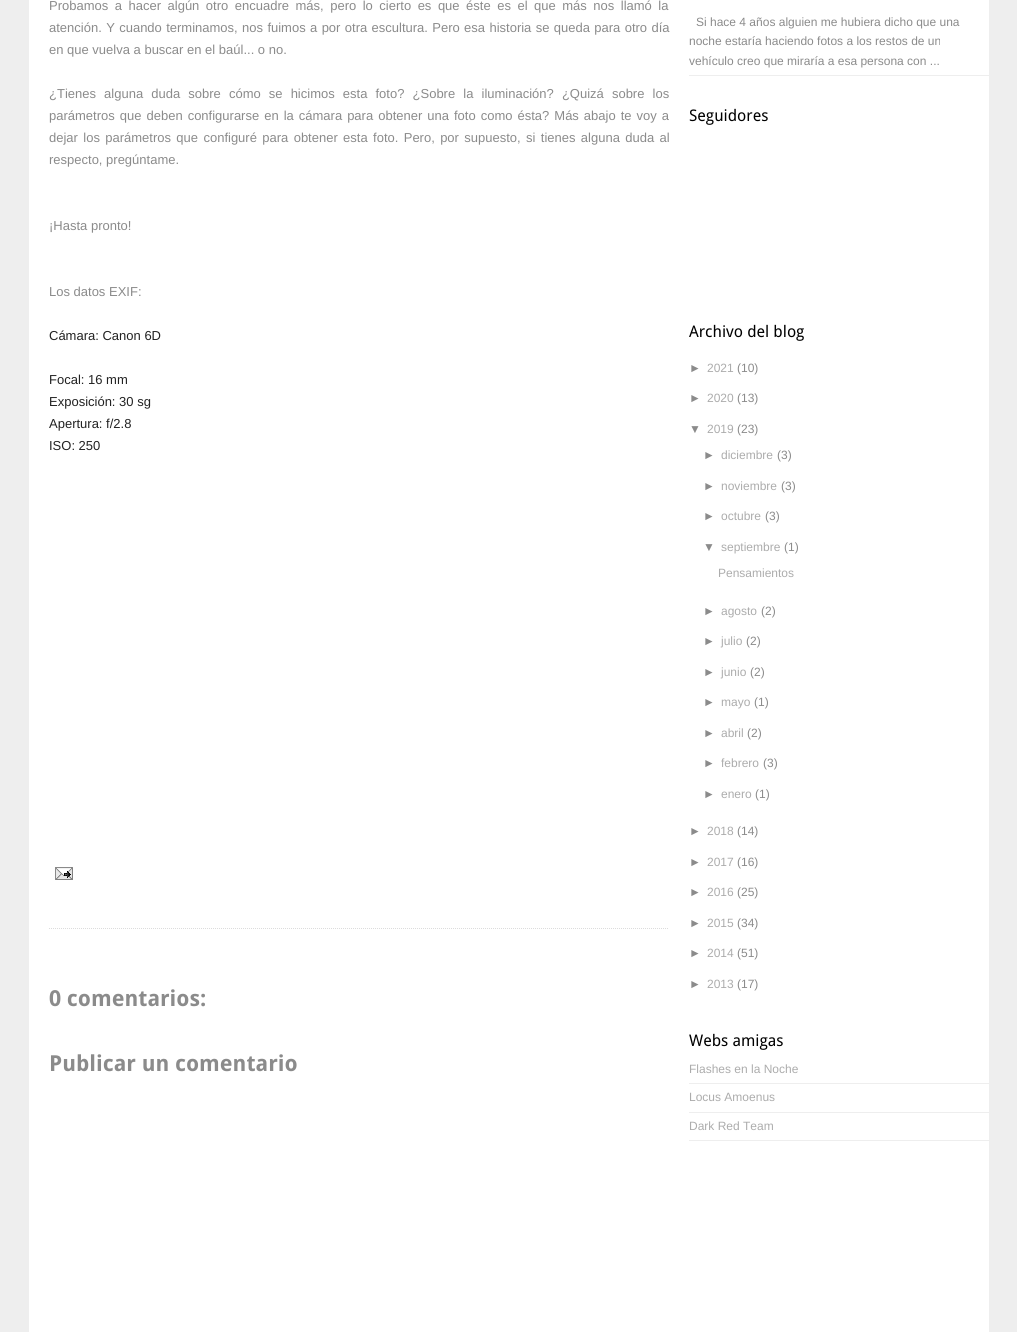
#include <cairo/cairo.h>
#include <math.h>
#include <stddef.h>

static cairo_t *cr;

static void use_color(int r, int g, int b) {
  cairo_set_source_rgb(cr, r / 255.0, g / 255.0, b / 255.0);
}

static void text(double x, double y, const char *s, const char *family, double size, int italic, int bold, int r, int g, int b) {
  cairo_select_font_face(cr, family, italic ? CAIRO_FONT_SLANT_ITALIC : CAIRO_FONT_SLANT_NORMAL,
    bold ? CAIRO_FONT_WEIGHT_BOLD : CAIRO_FONT_WEIGHT_NORMAL);
  cairo_set_font_size(cr, size);
  use_color(r, g, b);
  cairo_move_to(cr, x, y);
  cairo_show_text(cr, s);
}

static void spaced_text(double x, double y, const char *s, double letter, double word) {
  cairo_move_to(cr, x, y);
  while (*s) {
    char ch[5] = {0};
    int n = 0;
    do ch[n++] = *s++; while ((*s & 0xC0) == 0x80);
    cairo_show_text(cr, ch);
    cairo_rel_move_to(cr, letter + word * (*ch == ' '), 0);
  }
}

static void box(double x, double y, double w, double h, int r, int g, int b) {
  use_color(r, g, b);
  cairo_rectangle(cr, x, y, w, h);
  cairo_fill(cr);
}

static void picture(const char *path, double x, double y, double w, double h) {
  cairo_surface_t *image = cairo_image_surface_create_from_png(path);
  cairo_save(cr);
  cairo_set_source_surface(cr, image, x, y);
  cairo_rectangle(cr, x, y, w, h);
  cairo_fill(cr);
  cairo_restore(cr);
  cairo_surface_destroy(image);
}

static void draw(void) {
  use_color(238, 238, 238);
  cairo_paint(cr);
  box(29, 0, 960, 1332, 255, 255, 255);
  cairo_new_path(cr);
  cairo_move_to(cr, 49, 928.5);
  cairo_line_to(cr, 669, 928.5);
  use_color(220, 220, 220);
  cairo_set_line_width(cr, 1);
  cairo_set_dash(cr, (double[]){1, 1}, 2, 0);
  cairo_stroke(cr);
  picture("img_01.png", 55, 867, 18, 13);
  box(689, 75, 300, 1, 238, 238, 238);
  box(689, 1083, 300, 1, 238, 238, 238);
  box(689, 1112, 300, 1, 238, 238, 238);
  box(689, 1140, 300, 1, 238, 238, 238);
  cairo_select_font_face(cr, "Liberation Sans", CAIRO_FONT_SLANT_NORMAL, CAIRO_FONT_WEIGHT_NORMAL);
  cairo_set_font_size(cr, 13);
  use_color(139, 139, 139);
  spaced_text(49, 10, "Probamos a hacer algún otro encuadre más, pero lo cierto es que éste es el que más nos llamó la", 0, 2.9);
  spaced_text(49, 32, "atención. Y cuando terminamos, nos fuimos a por otra escultura. Pero esa historia se queda para otro día", 0, 0.75);
  text(49, 54, "en que vuelva a buscar en el baúl... o no.", "Liberation Sans", 13, 0, 0, 139, 139, 139);
  spaced_text(49, 98, "¿Tienes alguna duda sobre cómo se hicimos esta foto? ¿Sobre la iluminación? ¿Quizá sobre los", 0, 4.5);
  spaced_text(49, 120, "parámetros que deben configurarse en la cámara para obtener una foto como ésta? Más abajo te voy a", 0, 1.4);
  spaced_text(49, 142, "dejar los parámetros que configuré para obtener esta foto. Pero, por supuesto, si tienes alguna duda al", 0, 1.75);
  text(49, 164, "respecto, pregúntame.", "Liberation Sans", 13, 0, 0, 139, 139, 139);
  text(49, 230, "¡Hasta pronto!", "Liberation Sans", 13, 0, 0, 139, 139, 139);
  text(49, 296, "Los datos EXIF:", "Liberation Sans", 13, 0, 0, 139, 139, 139);
  text(49, 340, "Cámara: Canon 6D", "Liberation Sans", 13, 0, 0, 34, 34, 34);
  text(49, 384, "Focal: 16 mm", "Liberation Sans", 13, 0, 0, 34, 34, 34);
  text(49, 406, "Exposición: 30 sg", "Liberation Sans", 13, 0, 0, 34, 34, 34);
  text(49, 428, "Apertura: f/2.8", "Liberation Sans", 13, 0, 0, 34, 34, 34);
  text(49, 450, "ISO: 250", "Liberation Sans", 13, 0, 0, 34, 34, 34);
  text(49, 1006, "0 comentarios:", "Droid Sans", 22, 0, 1, 139, 139, 139);
  text(49, 1071, "Publicar un comentario", "Droid Sans", 22, 0, 1, 139, 139, 139);
  text(696, 26, "Si hace 4 años alguien me hubiera dicho que una", "Liberation Sans", 12, 0, 0, 139, 139, 139);
  text(689, 45, "noche estaría haciendo fotos a los restos de un", "Liberation Sans", 12, 0, 0, 139, 139, 139);
  text(689, 65, "vehículo creo que miraría a esa persona con ...", "Liberation Sans", 12, 0, 0, 139, 139, 139);
  text(689, 121, "Seguidores", "Droid Sans", 16, 0, 0, 0, 0, 0);
  text(689, 337, "Archivo del blog", "Droid Sans", 16, 0, 0, 0, 0, 0);
  text(689, 372, "►", "Liberation Sans", 12, 0, 0, 139, 139, 139);
  text(707, 372, "2021", "Liberation Sans", 12, 0, 0, 172, 172, 172);
  text(737, 372, "(10)", "Liberation Sans", 12, 0, 0, 139, 139, 139);
  text(689, 402, "►", "Liberation Sans", 12, 0, 0, 139, 139, 139);
  text(707, 402, "2020", "Liberation Sans", 12, 0, 0, 172, 172, 172);
  text(737, 402, "(13)", "Liberation Sans", 12, 0, 0, 139, 139, 139);
  text(689, 433, "▼", "Liberation Sans", 12, 0, 0, 139, 139, 139);
  text(707, 433, "2019", "Liberation Sans", 12, 0, 0, 172, 172, 172);
  text(737, 433, "(23)", "Liberation Sans", 12, 0, 0, 139, 139, 139);
  text(703, 459, "►", "Liberation Sans", 12, 0, 0, 139, 139, 139);
  text(721, 459, "diciembre", "Liberation Sans", 12, 0, 0, 172, 172, 172);
  text(777, 459, "(3)", "Liberation Sans", 12, 0, 0, 139, 139, 139);
  text(703, 490, "►", "Liberation Sans", 12, 0, 0, 139, 139, 139);
  text(721, 490, "noviembre", "Liberation Sans", 12, 0, 0, 172, 172, 172);
  text(781, 490, "(3)", "Liberation Sans", 12, 0, 0, 139, 139, 139);
  text(703, 520, "►", "Liberation Sans", 12, 0, 0, 139, 139, 139);
  text(721, 520, "octubre", "Liberation Sans", 12, 0, 0, 172, 172, 172);
  text(765, 520, "(3)", "Liberation Sans", 12, 0, 0, 139, 139, 139);
  text(703, 551, "▼", "Liberation Sans", 12, 0, 0, 139, 139, 139);
  text(721, 551, "septiembre", "Liberation Sans", 12, 0, 0, 172, 172, 172);
  text(784, 551, "(1)", "Liberation Sans", 12, 0, 0, 139, 139, 139);
  text(718, 577, "Pensamientos", "Liberation Sans", 12, 0, 0, 172, 172, 172);
  text(703, 615, "►", "Liberation Sans", 12, 0, 0, 139, 139, 139);
  text(721, 615, "agosto", "Liberation Sans", 12, 0, 0, 172, 172, 172);
  text(761, 615, "(2)", "Liberation Sans", 12, 0, 0, 139, 139, 139);
  text(703, 645, "►", "Liberation Sans", 12, 0, 0, 139, 139, 139);
  text(721, 645, "julio", "Liberation Sans", 12, 0, 0, 172, 172, 172);
  text(746, 645, "(2)", "Liberation Sans", 12, 0, 0, 139, 139, 139);
  text(703, 676, "►", "Liberation Sans", 12, 0, 0, 139, 139, 139);
  text(721, 676, "junio", "Liberation Sans", 12, 0, 0, 172, 172, 172);
  text(750, 676, "(2)", "Liberation Sans", 12, 0, 0, 139, 139, 139);
  text(703, 706, "►", "Liberation Sans", 12, 0, 0, 139, 139, 139);
  text(721, 706, "mayo", "Liberation Sans", 12, 0, 0, 172, 172, 172);
  text(754, 706, "(1)", "Liberation Sans", 12, 0, 0, 139, 139, 139);
  text(703, 737, "►", "Liberation Sans", 12, 0, 0, 139, 139, 139);
  text(721, 737, "abril", "Liberation Sans", 12, 0, 0, 172, 172, 172);
  text(747, 737, "(2)", "Liberation Sans", 12, 0, 0, 139, 139, 139);
  text(703, 767, "►", "Liberation Sans", 12, 0, 0, 139, 139, 139);
  text(721, 767, "febrero", "Liberation Sans", 12, 0, 0, 172, 172, 172);
  text(763, 767, "(3)", "Liberation Sans", 12, 0, 0, 139, 139, 139);
  text(703, 798, "►", "Liberation Sans", 12, 0, 0, 139, 139, 139);
  text(721, 798, "enero", "Liberation Sans", 12, 0, 0, 172, 172, 172);
  text(755, 798, "(1)", "Liberation Sans", 12, 0, 0, 139, 139, 139);
  text(689, 835, "►", "Liberation Sans", 12, 0, 0, 139, 139, 139);
  text(707, 835, "2018", "Liberation Sans", 12, 0, 0, 172, 172, 172);
  text(737, 835, "(14)", "Liberation Sans", 12, 0, 0, 139, 139, 139);
  text(689, 866, "►", "Liberation Sans", 12, 0, 0, 139, 139, 139);
  text(707, 866, "2017", "Liberation Sans", 12, 0, 0, 172, 172, 172);
  text(737, 866, "(16)", "Liberation Sans", 12, 0, 0, 139, 139, 139);
  text(689, 896, "►", "Liberation Sans", 12, 0, 0, 139, 139, 139);
  text(707, 896, "2016", "Liberation Sans", 12, 0, 0, 172, 172, 172);
  text(737, 896, "(25)", "Liberation Sans", 12, 0, 0, 139, 139, 139);
  text(689, 927, "►", "Liberation Sans", 12, 0, 0, 139, 139, 139);
  text(707, 927, "2015", "Liberation Sans", 12, 0, 0, 172, 172, 172);
  text(737, 927, "(34)", "Liberation Sans", 12, 0, 0, 139, 139, 139);
  text(689, 957, "►", "Liberation Sans", 12, 0, 0, 139, 139, 139);
  text(707, 957, "2014", "Liberation Sans", 12, 0, 0, 172, 172, 172);
  text(737, 957, "(51)", "Liberation Sans", 12, 0, 0, 139, 139, 139);
  text(689, 988, "►", "Liberation Sans", 12, 0, 0, 139, 139, 139);
  text(707, 988, "2013", "Liberation Sans", 12, 0, 0, 172, 172, 172);
  text(737, 988, "(17)", "Liberation Sans", 12, 0, 0, 139, 139, 139);
  text(689, 1046, "Webs amigas", "Droid Sans", 16, 0, 0, 0, 0, 0);
  text(689, 1073, "Flashes en la Noche", "Liberation Sans", 12, 0, 0, 172, 172, 172);
  text(689, 1101, "Locus Amoenus", "Liberation Sans", 12, 0, 0, 172, 172, 172);
  text(689, 1130, "Dark Red Team", "Liberation Sans", 12, 0, 0, 172, 172, 172);
}

int main(void) {
  cairo_surface_t *surface = cairo_image_surface_create(CAIRO_FORMAT_RGB24, 1017, 1332);
  cr = cairo_create(surface);
  cairo_font_options_t *options = cairo_font_options_create();
  cairo_font_options_set_hint_metrics(options, CAIRO_HINT_METRICS_OFF);
  cairo_font_options_set_hint_style(options, CAIRO_HINT_STYLE_NONE);
  cairo_set_font_options(cr, options);
  cairo_set_miter_limit(cr, 4);
  draw();
  cairo_surface_write_to_png(surface, "out.png");
  cairo_font_options_destroy(options);
  cairo_destroy(cr);
  cairo_surface_destroy(surface);
  return 0;
}
